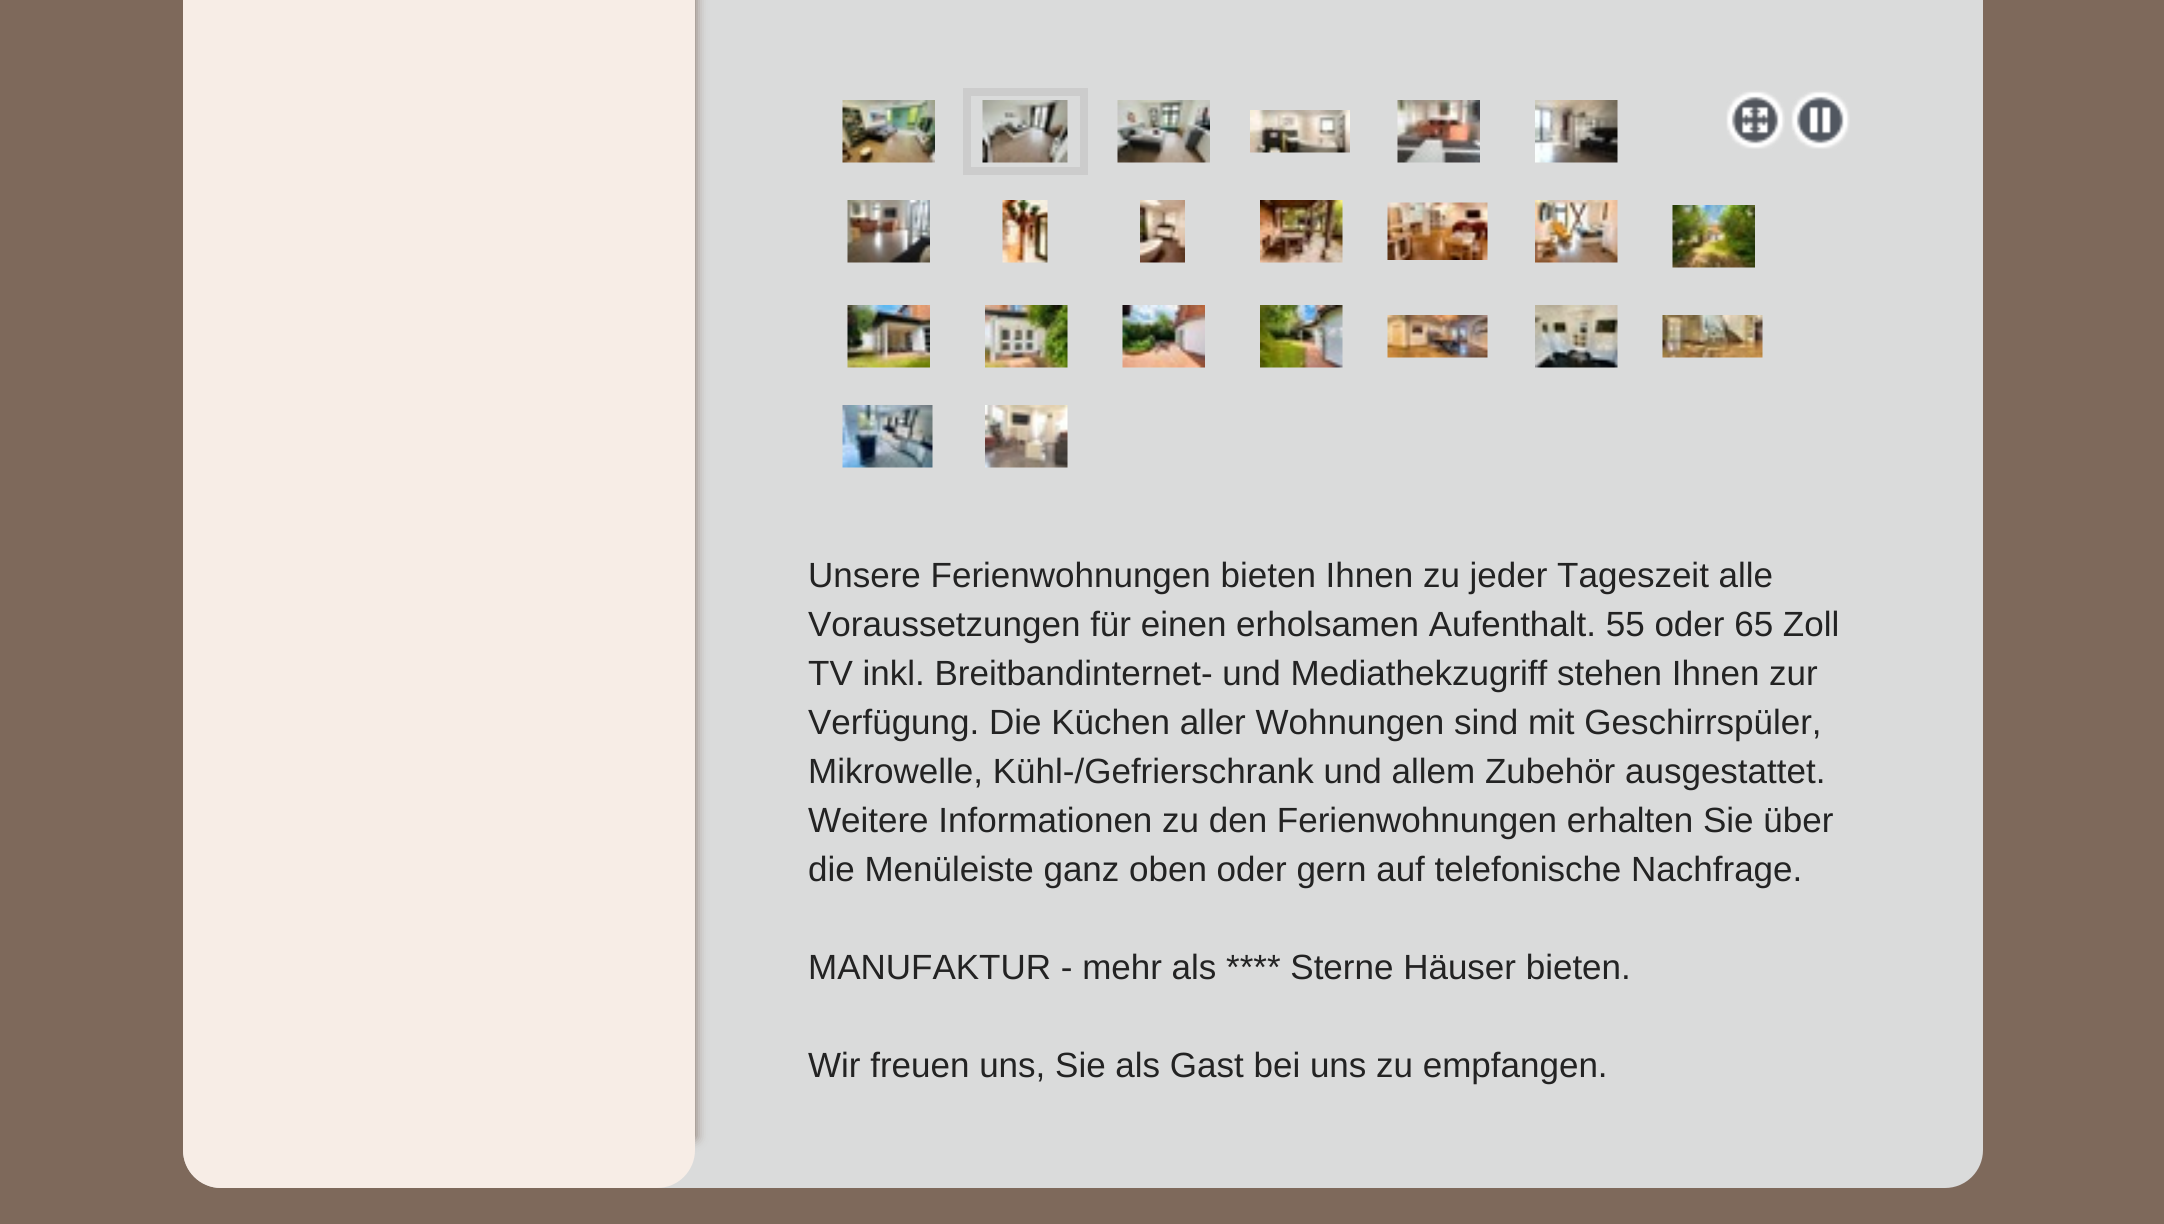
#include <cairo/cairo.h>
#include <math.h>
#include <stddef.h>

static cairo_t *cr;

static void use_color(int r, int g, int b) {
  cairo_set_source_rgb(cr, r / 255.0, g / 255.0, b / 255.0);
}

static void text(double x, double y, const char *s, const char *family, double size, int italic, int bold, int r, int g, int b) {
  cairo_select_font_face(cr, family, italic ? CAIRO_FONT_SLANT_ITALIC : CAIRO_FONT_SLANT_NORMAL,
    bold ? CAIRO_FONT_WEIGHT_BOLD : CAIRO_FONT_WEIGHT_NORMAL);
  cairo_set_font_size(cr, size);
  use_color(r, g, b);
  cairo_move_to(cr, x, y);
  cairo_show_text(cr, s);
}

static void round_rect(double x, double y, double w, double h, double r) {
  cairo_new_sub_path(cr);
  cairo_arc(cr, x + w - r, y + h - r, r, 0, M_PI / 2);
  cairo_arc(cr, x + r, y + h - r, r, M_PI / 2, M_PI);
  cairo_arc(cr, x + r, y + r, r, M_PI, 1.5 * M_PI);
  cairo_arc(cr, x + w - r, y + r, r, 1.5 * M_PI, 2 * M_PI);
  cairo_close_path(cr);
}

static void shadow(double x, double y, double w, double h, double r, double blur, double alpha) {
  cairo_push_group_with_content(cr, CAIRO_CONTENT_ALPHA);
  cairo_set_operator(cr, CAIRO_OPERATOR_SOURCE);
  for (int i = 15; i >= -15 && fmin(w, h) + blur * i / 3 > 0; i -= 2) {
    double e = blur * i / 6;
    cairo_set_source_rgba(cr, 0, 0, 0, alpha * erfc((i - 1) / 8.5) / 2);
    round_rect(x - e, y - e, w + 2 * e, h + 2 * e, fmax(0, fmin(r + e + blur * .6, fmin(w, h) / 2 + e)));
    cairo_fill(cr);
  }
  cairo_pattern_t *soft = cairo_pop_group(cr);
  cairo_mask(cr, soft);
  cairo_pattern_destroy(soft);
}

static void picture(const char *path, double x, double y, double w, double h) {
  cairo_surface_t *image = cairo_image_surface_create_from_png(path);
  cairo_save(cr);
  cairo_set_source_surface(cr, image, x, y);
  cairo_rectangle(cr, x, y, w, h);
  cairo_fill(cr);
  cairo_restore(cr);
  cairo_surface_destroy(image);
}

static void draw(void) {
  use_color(126, 105, 91);
  cairo_paint(cr);
  use_color(218, 219, 219);
  cairo_new_path(cr);
  cairo_move_to(cr, 183, -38);
  cairo_line_to(cr, 1983, -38);
  cairo_line_to(cr, 1983, 1150);
  cairo_curve_to(cr, 1983, 1171, 1966, 1188, 1945, 1188);
  cairo_line_to(cr, 221, 1188);
  cairo_curve_to(cr, 200, 1188, 183, 1171, 183, 1150);
  cairo_close_path(cr);
  cairo_fill(cr);
  use_color(126, 105, 91);
  shadow(283, -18, 412, 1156, 0, 6, 1);
  use_color(247, 237, 230);
  cairo_new_path(cr);
  cairo_move_to(cr, 183, -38);
  cairo_line_to(cr, 695, -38);
  cairo_line_to(cr, 695, 1150);
  cairo_curve_to(cr, 695, 1171, 678, 1188, 657, 1188);
  cairo_line_to(cr, 221, 1188);
  cairo_curve_to(cr, 200, 1188, 183, 1171, 183, 1150);
  cairo_close_path(cr);
  cairo_fill(cr);
  picture("img_01.png", 842, 100, 93, 63);
  cairo_rectangle(cr, 967, 92, 117, 79);
  use_color(204, 204, 204);
  cairo_set_line_width(cr, 8);
  cairo_stroke(cr);
  picture("img_02.png", 982, 100, 86, 63);
  picture("img_03.png", 1117, 100, 93, 63);
  picture("img_04.png", 1250, 110, 100, 43);
  picture("img_05.png", 1397, 100, 83, 63);
  picture("img_06.png", 1535, 100, 83, 63);
  picture("img_07.png", 1726, 90, 59, 59);
  picture("img_08.png", 1791, 90, 59, 59);
  picture("img_09.png", 847, 200, 83, 63);
  picture("img_10.png", 1002, 200, 46, 63);
  picture("img_11.png", 1140, 200, 45, 63);
  picture("img_12.png", 1260, 200, 83, 63);
  picture("img_13.png", 1387, 202, 101, 58);
  picture("img_14.png", 1535, 200, 83, 63);
  picture("img_15.png", 1672, 205, 83, 63);
  picture("img_16.png", 847, 305, 83, 63);
  picture("img_17.png", 985, 305, 83, 63);
  picture("img_18.png", 1122, 305, 83, 63);
  picture("img_19.png", 1260, 305, 83, 63);
  picture("img_20.png", 1387, 315, 101, 43);
  picture("img_21.png", 1535, 305, 83, 63);
  picture("img_22.png", 1662, 315, 101, 43);
  picture("img_23.png", 842, 405, 91, 63);
  picture("img_24.png", 985, 405, 83, 63);
  text(808, 587, "Unsere Ferienwohnungen bieten Ihnen zu jeder Tageszeit alle", "Liberation Sans", 35, 0, 0, 35, 35, 35);
  text(808, 636, "Voraussetzungen für einen erholsamen Aufenthalt. 55 oder 65 Zoll", "Liberation Sans", 35, 0, 0, 35, 35, 35);
  text(808, 685, "TV inkl. Breitbandinternet- und Mediathekzugriff stehen Ihnen zur", "Liberation Sans", 35, 0, 0, 35, 35, 35);
  text(808, 734, "Verfügung. Die Küchen aller Wohnungen sind mit Geschirrspüler,", "Liberation Sans", 35, 0, 0, 35, 35, 35);
  text(808, 783, "Mikrowelle, Kühl-/Gefrierschrank und allem Zubehör ausgestattet.", "Liberation Sans", 35, 0, 0, 35, 35, 35);
  text(808, 832, "Weitere Informationen zu den Ferienwohnungen erhalten Sie über", "Liberation Sans", 35, 0, 0, 35, 35, 35);
  text(808, 881, "die Menüleiste ganz oben oder gern auf telefonische Nachfrage.", "Liberation Sans", 35, 0, 0, 35, 35, 35);
  text(808, 979, "MANUFAKTUR - mehr als **** Sterne Häuser bieten.", "Liberation Sans", 35, 0, 0, 35, 35, 35);
  text(808, 1077, "Wir freuen uns, Sie als Gast bei uns zu empfangen.", "Liberation Sans", 35, 0, 0, 35, 35, 35);
}

int main(void) {
  cairo_surface_t *surface = cairo_image_surface_create(CAIRO_FORMAT_RGB24, 2164, 1224);
  cr = cairo_create(surface);
  cairo_font_options_t *options = cairo_font_options_create();
  cairo_font_options_set_hint_metrics(options, CAIRO_HINT_METRICS_OFF);
  cairo_font_options_set_hint_style(options, CAIRO_HINT_STYLE_NONE);
  cairo_set_font_options(cr, options);
  cairo_set_miter_limit(cr, 4);
  draw();
  cairo_surface_write_to_png(surface, "out.png");
  cairo_font_options_destroy(options);
  cairo_destroy(cr);
  cairo_surface_destroy(surface);
  return 0;
}
